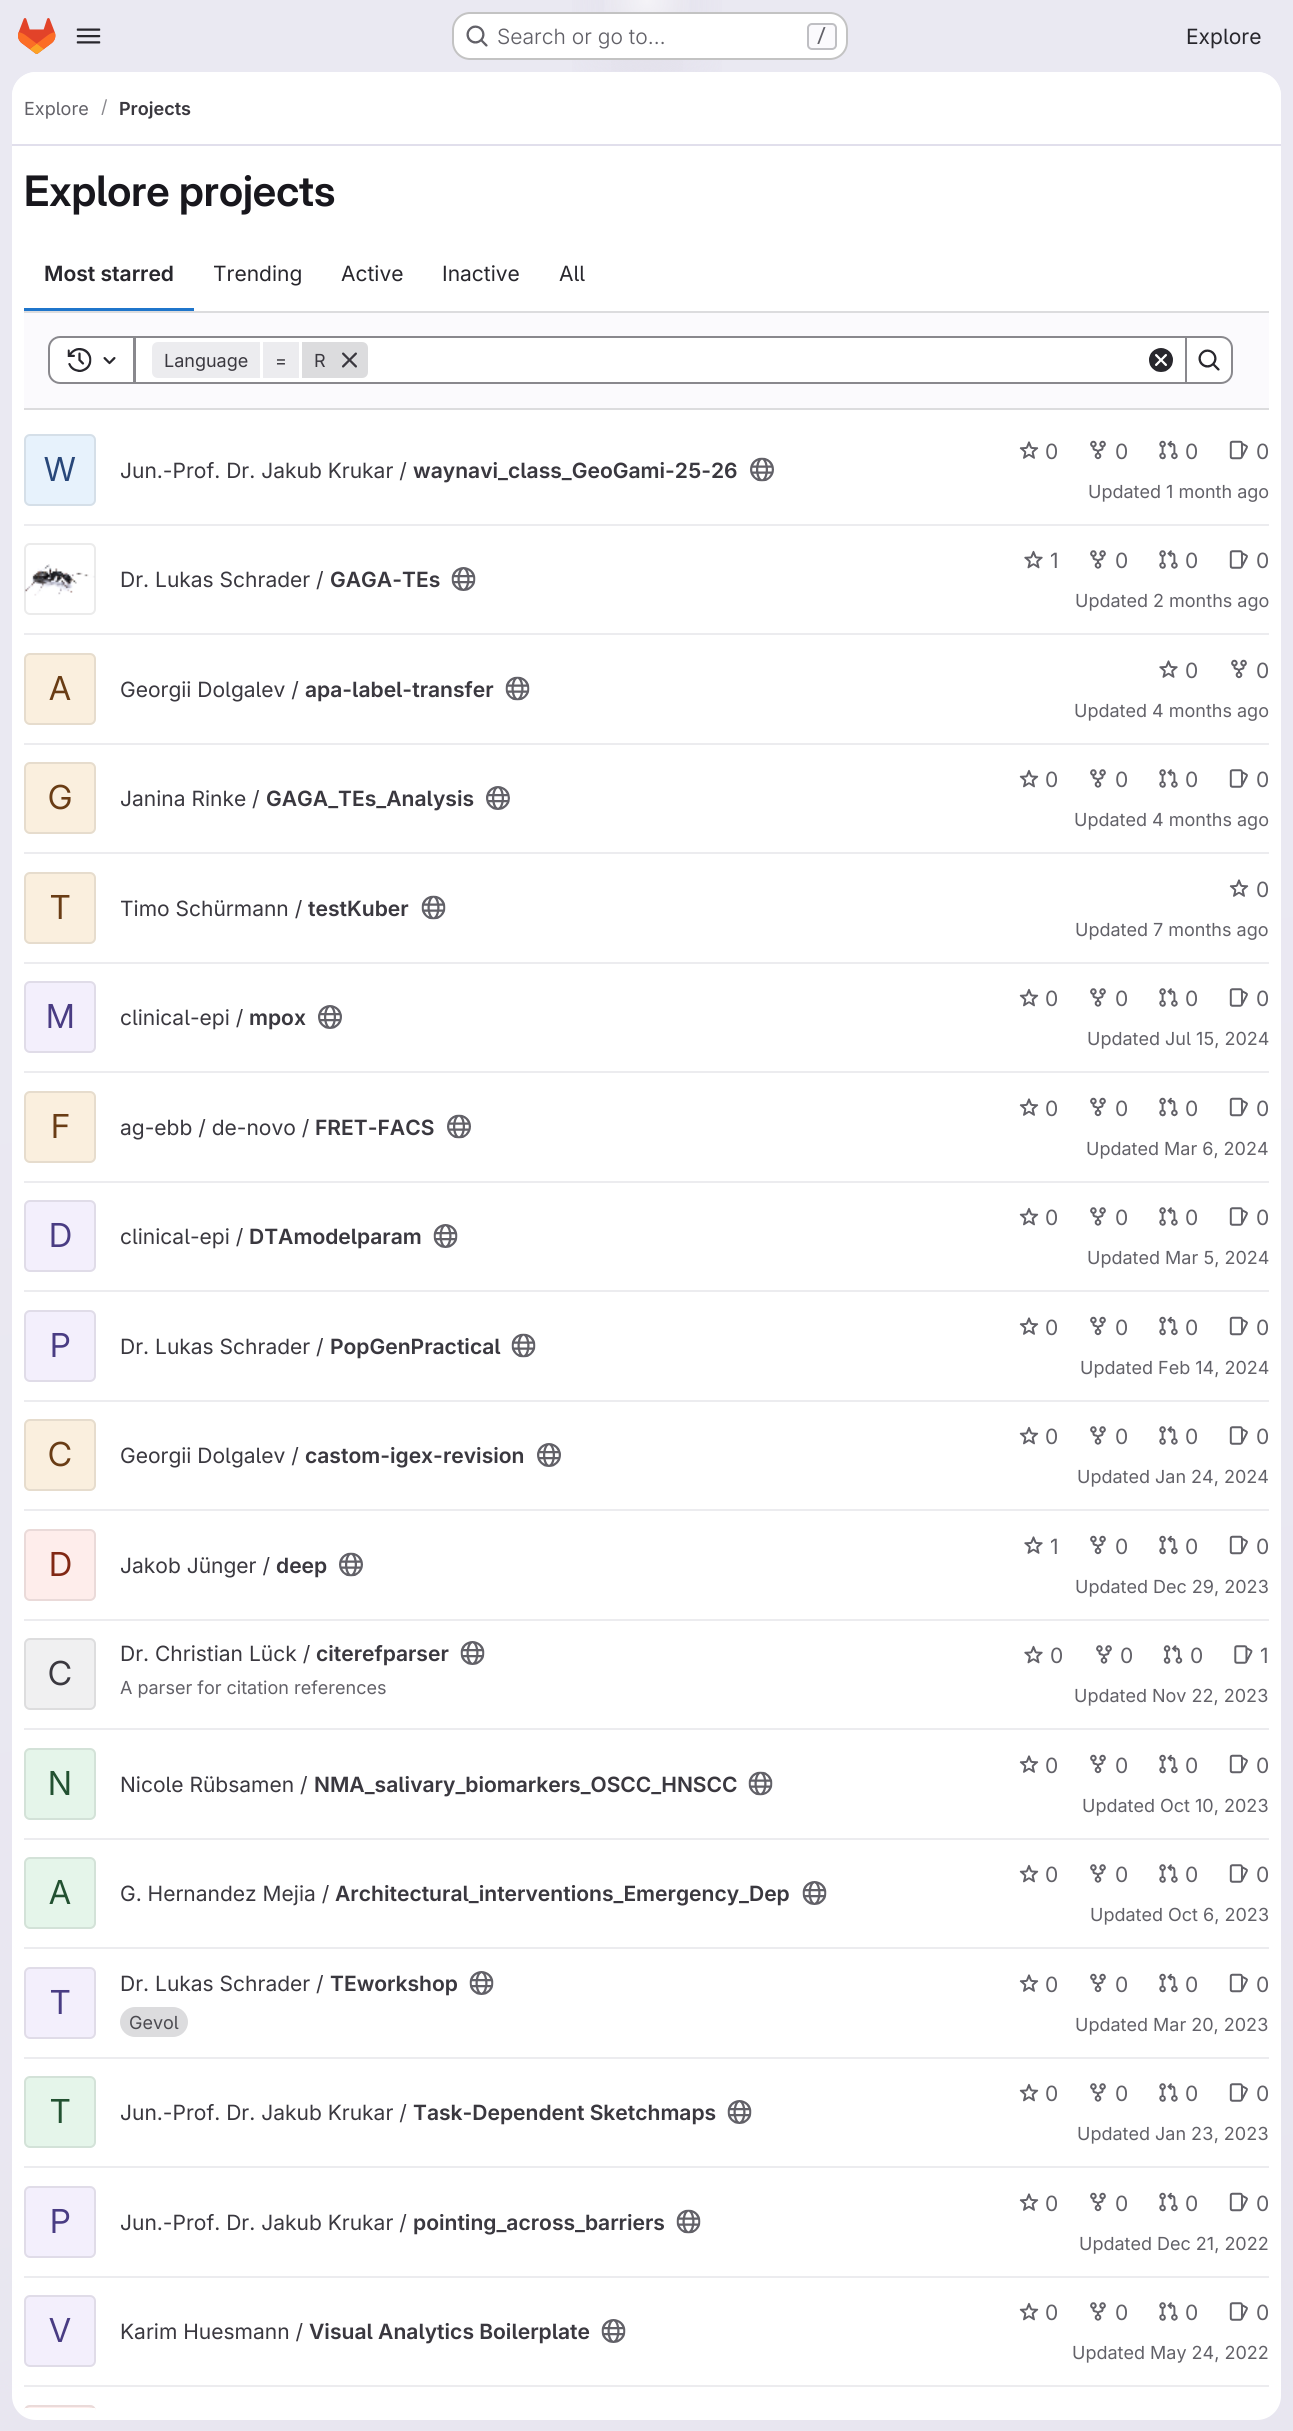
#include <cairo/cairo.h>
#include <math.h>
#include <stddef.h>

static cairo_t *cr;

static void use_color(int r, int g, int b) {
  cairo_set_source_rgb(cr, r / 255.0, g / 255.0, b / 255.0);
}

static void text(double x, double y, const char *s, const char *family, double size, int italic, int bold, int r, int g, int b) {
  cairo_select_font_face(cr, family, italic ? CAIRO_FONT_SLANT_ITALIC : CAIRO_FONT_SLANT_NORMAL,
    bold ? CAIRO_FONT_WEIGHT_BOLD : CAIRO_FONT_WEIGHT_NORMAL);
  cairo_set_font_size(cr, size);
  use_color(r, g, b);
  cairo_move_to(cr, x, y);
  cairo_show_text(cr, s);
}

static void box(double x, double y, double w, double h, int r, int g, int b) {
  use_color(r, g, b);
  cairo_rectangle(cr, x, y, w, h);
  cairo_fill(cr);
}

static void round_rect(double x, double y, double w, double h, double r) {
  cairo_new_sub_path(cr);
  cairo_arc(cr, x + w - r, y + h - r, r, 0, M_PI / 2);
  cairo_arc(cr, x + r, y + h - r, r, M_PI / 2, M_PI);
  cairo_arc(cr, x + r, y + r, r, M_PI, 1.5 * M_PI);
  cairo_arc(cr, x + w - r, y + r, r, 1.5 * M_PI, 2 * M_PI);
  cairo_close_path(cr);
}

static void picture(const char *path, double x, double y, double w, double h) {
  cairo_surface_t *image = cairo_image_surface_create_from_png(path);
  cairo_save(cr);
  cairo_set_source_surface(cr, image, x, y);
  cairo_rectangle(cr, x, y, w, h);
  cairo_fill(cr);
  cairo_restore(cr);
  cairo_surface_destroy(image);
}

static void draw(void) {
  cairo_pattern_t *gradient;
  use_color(255, 255, 255);
  cairo_paint(cr);
  gradient = cairo_pattern_create_linear(874, 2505, 419, -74);
  cairo_pattern_add_color_stop_rgba(gradient, 0, 0.91, 0.902, 0.941, 1);
  cairo_pattern_add_color_stop_rgba(gradient, 0.7, 0.918, 0.914, 0.949, 1);
  cairo_set_source(cr, gradient);
  cairo_pattern_destroy(gradient);
  cairo_rectangle(cr, 0, 0, 1293, 2431);
  cairo_fill(cr);
  gradient = cairo_pattern_create_radial(0, 0, 0, 0, 0, 1);
  cairo_pattern_set_matrix(gradient, &(cairo_matrix_t){1.0 / 647, 0, 0, 1.0 / 2432, -1.0 * 647 / 647, -1.0 * 0 / 2432});
  cairo_pattern_add_color_stop_rgba(gradient, 0, 0.894, 0.886, 0.929, 1);
  cairo_pattern_add_color_stop_rgba(gradient, 0.16, 0.894, 0.886, 0.929, 0);
  cairo_set_source(cr, gradient);
  cairo_pattern_destroy(gradient);
  cairo_rectangle(cr, 572, 0, 150, 72);
  cairo_fill(cr);
  gradient = cairo_pattern_create_radial(0, 0, 0, 0, 0, 1);
  cairo_pattern_set_matrix(gradient, &(cairo_matrix_t){1.0 / 647, 0, 0, 1.0 / 2432, -1.0 * 647 / 647, -1.0 * 0 / 2432});
  cairo_pattern_add_color_stop_rgba(gradient, 0, 0.894, 0.886, 0.925, 1);
  cairo_pattern_add_color_stop_rgba(gradient, 0.12, 0.894, 0.886, 0.925, 0);
  cairo_set_source(cr, gradient);
  cairo_pattern_destroy(gradient);
  cairo_rectangle(cr, 611, 0, 72, 71);
  cairo_fill(cr);
  gradient = cairo_pattern_create_radial(647, 0, 0, 647, 0, 2516);
  cairo_pattern_add_color_stop_rgba(gradient, 0, 1, 1, 1, 0.6);
  cairo_pattern_add_color_stop_rgba(gradient, 0.02, 1, 1, 1, 0);
  cairo_set_source(cr, gradient);
  cairo_pattern_destroy(gradient);
  cairo_rectangle(cr, 604, 0, 86, 12);
  cairo_fill(cr);
  picture("img_01.png", 18, 18, 38, 36);
  picture("img_02.png", 76, 28, 25, 16);
  use_color(255, 255, 255);
  round_rect(452, 12, 396, 48, 18);
  cairo_fill(cr);
  round_rect(453, 13, 394, 46, 17);
  cairo_set_source_rgba(cr, 0.02, 0.02, 0.024, 0.24);
  cairo_stroke(cr);
  picture("img_03.png", 466, 25, 22, 22);
  use_color(251, 250, 253);
  round_rect(808, 24, 28, 25, 4);
  cairo_fill_preserve(cr);
  use_color(191, 191, 195);
  cairo_stroke(cr);
  use_color(255, 255, 255);
  round_rect(12, 72, 1269, 2348, 24);
  cairo_fill(cr);
  cairo_new_path(cr);
  cairo_move_to(cr, 36, 72);
  cairo_line_to(cr, 1257, 72);
  cairo_curve_to(cr, 1270.5, 72, 1281, 82.5, 1281, 96);
  cairo_line_to(cr, 1281, 146);
  cairo_line_to(cr, 12, 146);
  cairo_line_to(cr, 12, 96);
  cairo_curve_to(cr, 12, 82.5, 22.5, 72, 36, 72);
  cairo_close_path(cr);
  cairo_fill(cr);
  box(12, 144, 1269, 2, 225, 223, 236);
  box(24, 308, 170, 3, 31, 117, 203);
  box(24, 313, 1245, 95, 251, 250, 253);
  box(24, 311, 1245, 2, 220, 220, 222);
  box(24, 408, 1245, 2, 220, 220, 222);
  use_color(255, 255, 255);
  cairo_rectangle(cr, 135, 337, 1051, 46);
  cairo_fill_preserve(cr);
  use_color(137, 136, 141);
  cairo_stroke(cr);
  use_color(255, 255, 255);
  cairo_new_path(cr);
  cairo_move_to(cr, 60, 337);
  cairo_line_to(cr, 134, 337);
  cairo_line_to(cr, 134, 383);
  cairo_line_to(cr, 60, 383);
  cairo_curve_to(cr, 54, 383, 49, 378, 49, 372);
  cairo_line_to(cr, 49, 348);
  cairo_curve_to(cr, 49, 342, 54, 337, 60, 337);
  cairo_close_path(cr);
  cairo_fill_preserve(cr);
  use_color(137, 136, 141);
  cairo_stroke(cr);
  picture("img_04.png", 67, 348, 25, 24);
  picture("img_05.png", 103, 357, 13, 8);
  use_color(236, 236, 239);
  cairo_new_path(cr);
  cairo_move_to(cr, 158, 342);
  cairo_line_to(cr, 260, 342);
  cairo_line_to(cr, 260, 378);
  cairo_line_to(cr, 158, 378);
  cairo_curve_to(cr, 154.5, 378, 152, 375.5, 152, 372);
  cairo_line_to(cr, 152, 348);
  cairo_curve_to(cr, 152, 344.5, 154.5, 342, 158, 342);
  cairo_close_path(cr);
  cairo_fill(cr);
  box(263, 342, 36, 36, 236, 236, 239);
  use_color(220, 220, 222);
  cairo_new_path(cr);
  cairo_move_to(cr, 302, 342);
  cairo_line_to(cr, 362, 342);
  cairo_curve_to(cr, 365.5, 342, 368, 344.5, 368, 348);
  cairo_line_to(cr, 368, 372);
  cairo_curve_to(cr, 368, 375.5, 365.5, 378, 362, 378);
  cairo_line_to(cr, 302, 378);
  cairo_close_path(cr);
  cairo_fill(cr);
  picture("img_06.png", 342, 352, 15, 16);
  picture("img_07.png", 1149, 348, 24, 24);
  use_color(255, 255, 255);
  cairo_new_path(cr);
  cairo_move_to(cr, 1186, 337);
  cairo_line_to(cr, 1221, 337);
  cairo_curve_to(cr, 1227, 337, 1232, 342, 1232, 348);
  cairo_line_to(cr, 1232, 372);
  cairo_curve_to(cr, 1232, 378, 1227, 383, 1221, 383);
  cairo_line_to(cr, 1186, 383);
  cairo_close_path(cr);
  cairo_fill_preserve(cr);
  use_color(137, 136, 141);
  cairo_stroke(cr);
  picture("img_08.png", 1198, 349, 22, 22);
  box(24, 524, 1245, 2, 236, 236, 239);
  use_color(231, 242, 252);
  round_rect(24, 434, 72, 72, 6);
  cairo_fill(cr);
  round_rect(25, 435, 70, 70, 5);
  cairo_set_source_rgba(cr, 0.02, 0.02, 0.024, 0.08);
  cairo_stroke(cr);
  picture("img_09.png", 750, 457, 24, 25);
  picture("img_10.png", 1019, 441, 20, 18);
  picture("img_11.png", 1090, 440, 16, 20);
  picture("img_12.png", 1159, 440, 19, 20);
  picture("img_13.png", 1229, 440, 19, 20);
  box(24, 633, 1245, 2, 236, 236, 239);
  picture("img_14.png", 24, 564, 71, 32);
  round_rect(25, 544, 70, 70, 5);
  cairo_set_source_rgba(cr, 0.02, 0.02, 0.024, 0.08);
  cairo_stroke(cr);
  picture("img_15.png", 451, 567, 25, 24);
  picture("img_16.png", 1024, 550, 19, 19);
  picture("img_17.png", 1090, 550, 16, 19);
  picture("img_18.png", 1159, 550, 19, 19);
  picture("img_19.png", 1229, 550, 19, 19);
  box(24, 743, 1245, 2, 236, 236, 239);
  use_color(250, 239, 222);
  round_rect(24, 653, 72, 72, 6);
  cairo_fill(cr);
  round_rect(25, 654, 70, 70, 5);
  cairo_set_source_rgba(cr, 0.02, 0.02, 0.024, 0.08);
  cairo_stroke(cr);
  picture("img_20.png", 505, 676, 25, 25);
  picture("img_21.png", 1159, 660, 19, 18);
  picture("img_11.png", 1231, 659, 16, 20);
  box(24, 852, 1245, 2, 236, 236, 239);
  use_color(250, 239, 222);
  round_rect(24, 762, 72, 72, 6);
  cairo_fill(cr);
  round_rect(25, 763, 70, 70, 5);
  cairo_set_source_rgba(cr, 0.02, 0.02, 0.024, 0.08);
  cairo_stroke(cr);
  picture("img_22.png", 486, 786, 24, 24);
  picture("img_23.png", 1019, 769, 20, 19);
  picture("img_17.png", 1090, 769, 16, 19);
  picture("img_18.png", 1159, 769, 19, 19);
  picture("img_19.png", 1229, 769, 19, 19);
  box(24, 962, 1245, 2, 236, 236, 239);
  use_color(250, 239, 222);
  round_rect(24, 872, 72, 72, 6);
  cairo_fill(cr);
  round_rect(25, 873, 70, 70, 5);
  cairo_set_source_rgba(cr, 0.02, 0.02, 0.024, 0.08);
  cairo_stroke(cr);
  picture("img_24.png", 421, 895, 25, 25);
  picture("img_10.png", 1229, 879, 20, 18);
  box(24, 1071, 1245, 2, 236, 236, 239);
  use_color(243, 239, 252);
  round_rect(24, 981, 72, 72, 6);
  cairo_fill(cr);
  round_rect(25, 982, 70, 70, 5);
  cairo_set_source_rgba(cr, 0.02, 0.02, 0.024, 0.08);
  cairo_stroke(cr);
  picture("img_25.png", 318, 1005, 24, 24);
  picture("img_23.png", 1019, 988, 20, 19);
  picture("img_17.png", 1090, 988, 16, 19);
  picture("img_18.png", 1159, 988, 19, 19);
  picture("img_19.png", 1229, 988, 19, 19);
  box(24, 1181, 1245, 2, 236, 236, 239);
  use_color(250, 239, 222);
  round_rect(24, 1091, 72, 72, 6);
  cairo_fill(cr);
  round_rect(25, 1092, 70, 70, 5);
  cairo_set_source_rgba(cr, 0.02, 0.02, 0.024, 0.08);
  cairo_stroke(cr);
  picture("img_26.png", 447, 1114, 24, 25);
  picture("img_10.png", 1019, 1098, 20, 18);
  picture("img_11.png", 1090, 1097, 16, 20);
  picture("img_12.png", 1159, 1097, 19, 20);
  picture("img_13.png", 1229, 1097, 19, 20);
  box(24, 1290, 1245, 2, 236, 236, 239);
  use_color(243, 239, 252);
  round_rect(24, 1200, 72, 72, 6);
  cairo_fill(cr);
  round_rect(25, 1201, 70, 70, 5);
  cairo_set_source_rgba(cr, 0.02, 0.02, 0.024, 0.08);
  cairo_stroke(cr);
  picture("img_15.png", 433, 1224, 25, 24);
  picture("img_23.png", 1019, 1207, 20, 19);
  picture("img_17.png", 1090, 1207, 16, 19);
  picture("img_18.png", 1159, 1207, 19, 19);
  picture("img_19.png", 1229, 1207, 19, 19);
  box(24, 1400, 1245, 2, 236, 236, 239);
  use_color(243, 239, 252);
  round_rect(24, 1310, 72, 72, 6);
  cairo_fill(cr);
  round_rect(25, 1311, 70, 70, 5);
  cairo_set_source_rgba(cr, 0.02, 0.02, 0.024, 0.08);
  cairo_stroke(cr);
  picture("img_24.png", 511, 1333, 25, 25);
  picture("img_10.png", 1019, 1317, 20, 18);
  picture("img_11.png", 1090, 1316, 16, 20);
  picture("img_12.png", 1159, 1316, 19, 20);
  picture("img_13.png", 1229, 1316, 19, 20);
  box(24, 1509, 1245, 2, 236, 236, 239);
  use_color(250, 239, 222);
  round_rect(24, 1419, 72, 72, 6);
  cairo_fill(cr);
  round_rect(25, 1420, 70, 70, 5);
  cairo_set_source_rgba(cr, 0.02, 0.02, 0.024, 0.08);
  cairo_stroke(cr);
  picture("img_27.png", 537, 1443, 24, 24);
  picture("img_23.png", 1019, 1426, 20, 19);
  picture("img_17.png", 1090, 1426, 16, 19);
  picture("img_18.png", 1159, 1426, 19, 19);
  picture("img_19.png", 1229, 1426, 19, 19);
  box(24, 1619, 1245, 2, 236, 236, 239);
  use_color(254, 237, 235);
  round_rect(24, 1529, 72, 72, 6);
  cairo_fill(cr);
  round_rect(25, 1530, 70, 70, 5);
  cairo_set_source_rgba(cr, 0.02, 0.02, 0.024, 0.08);
  cairo_stroke(cr);
  picture("img_28.png", 339, 1552, 24, 25);
  picture("img_21.png", 1024, 1536, 19, 18);
  picture("img_11.png", 1090, 1535, 16, 20);
  picture("img_12.png", 1159, 1535, 19, 20);
  picture("img_13.png", 1229, 1535, 19, 20);
  box(24, 1728, 1245, 2, 236, 236, 239);
  use_color(240, 240, 241);
  round_rect(24, 1638, 72, 72, 6);
  cairo_fill(cr);
  round_rect(25, 1639, 70, 70, 5);
  cairo_set_source_rgba(cr, 0.02, 0.02, 0.024, 0.08);
  cairo_stroke(cr);
  picture("img_15.png", 460, 1641, 25, 24);
  picture("img_16.png", 1024, 1645, 19, 19);
  picture("img_17.png", 1096, 1645, 16, 19);
  picture("img_29.png", 1163, 1645, 20, 19);
  picture("img_30.png", 1234, 1645, 19, 19);
  box(24, 1838, 1245, 2, 236, 236, 239);
  use_color(229, 245, 234);
  round_rect(24, 1748, 72, 72, 6);
  cairo_fill(cr);
  round_rect(25, 1749, 70, 70, 5);
  cairo_set_source_rgba(cr, 0.02, 0.02, 0.024, 0.08);
  cairo_stroke(cr);
  picture("img_31.png", 748, 1771, 25, 25);
  picture("img_10.png", 1019, 1755, 20, 18);
  picture("img_11.png", 1090, 1754, 16, 20);
  picture("img_12.png", 1159, 1754, 19, 20);
  picture("img_13.png", 1229, 1754, 19, 20);
  box(24, 1947, 1245, 2, 236, 236, 239);
  use_color(229, 245, 234);
  round_rect(24, 1857, 72, 72, 6);
  cairo_fill(cr);
  round_rect(25, 1858, 70, 70, 5);
  cairo_set_source_rgba(cr, 0.02, 0.02, 0.024, 0.08);
  cairo_stroke(cr);
  picture("img_15.png", 802, 1881, 25, 24);
  picture("img_23.png", 1019, 1864, 20, 19);
  picture("img_17.png", 1090, 1864, 16, 19);
  picture("img_18.png", 1159, 1864, 19, 19);
  picture("img_19.png", 1229, 1864, 19, 19);
  box(24, 2057, 1245, 2, 236, 236, 239);
  use_color(243, 239, 252);
  round_rect(24, 1967, 72, 72, 6);
  cairo_fill(cr);
  round_rect(25, 1968, 70, 70, 5);
  cairo_set_source_rgba(cr, 0.02, 0.02, 0.024, 0.08);
  cairo_stroke(cr);
  picture("img_32.png", 469, 1971, 25, 24);
  use_color(220, 220, 222);
  round_rect(120, 2007, 68, 30, 15);
  cairo_fill(cr);
  picture("img_10.png", 1019, 1974, 20, 18);
  picture("img_11.png", 1090, 1973, 16, 20);
  picture("img_12.png", 1159, 1973, 19, 20);
  picture("img_13.png", 1229, 1973, 19, 20);
  box(24, 2166, 1245, 2, 236, 236, 239);
  use_color(229, 245, 234);
  round_rect(24, 2076, 72, 72, 6);
  cairo_fill(cr);
  round_rect(25, 2077, 70, 70, 5);
  cairo_set_source_rgba(cr, 0.02, 0.02, 0.024, 0.08);
  cairo_stroke(cr);
  picture("img_15.png", 727, 2100, 25, 24);
  picture("img_23.png", 1019, 2083, 20, 19);
  picture("img_17.png", 1090, 2083, 16, 19);
  picture("img_18.png", 1159, 2083, 19, 19);
  picture("img_19.png", 1229, 2083, 19, 19);
  box(24, 2276, 1245, 2, 236, 236, 239);
  use_color(243, 239, 252);
  round_rect(24, 2186, 72, 72, 6);
  cairo_fill(cr);
  round_rect(25, 2187, 70, 70, 5);
  cairo_set_source_rgba(cr, 0.02, 0.02, 0.024, 0.08);
  cairo_stroke(cr);
  picture("img_24.png", 676, 2209, 25, 25);
  picture("img_10.png", 1019, 2193, 20, 18);
  picture("img_11.png", 1090, 2192, 16, 20);
  picture("img_12.png", 1159, 2192, 19, 20);
  picture("img_13.png", 1229, 2192, 19, 20);
  box(24, 2385, 1245, 2, 236, 236, 239);
  use_color(243, 239, 252);
  round_rect(24, 2295, 72, 72, 6);
  cairo_fill(cr);
  round_rect(25, 2296, 70, 70, 5);
  cairo_set_source_rgba(cr, 0.02, 0.02, 0.024, 0.08);
  cairo_stroke(cr);
  picture("img_33.png", 601, 2319, 25, 24);
  picture("img_23.png", 1019, 2302, 20, 19);
  picture("img_17.png", 1090, 2302, 16, 19);
  picture("img_34.png", 1159, 2302, 19, 19);
  picture("img_19.png", 1229, 2302, 19, 19);
  use_color(254, 237, 235);
  cairo_new_path(cr);
  cairo_move_to(cr, 30, 2405);
  cairo_line_to(cr, 90, 2405);
  cairo_curve_to(cr, 93.5, 2405, 96, 2407.5, 96, 2411);
  cairo_line_to(cr, 96, 2408);
  cairo_line_to(cr, 24, 2408);
  cairo_line_to(cr, 24, 2411);
  cairo_curve_to(cr, 24, 2407.5, 26.5, 2405, 30, 2405);
  cairo_close_path(cr);
  cairo_fill(cr);
  cairo_save(cr);
  cairo_rectangle(cr, 12, 146, 1269, 2262);
  cairo_clip(cr);
  cairo_set_source_rgba(cr, 0.02, 0.02, 0.024, 0.08);
  cairo_new_path(cr);
  cairo_move_to(cr, 30, 2405);
  cairo_curve_to(cr, 23, 2405, 24, 2412, 24, 2417);
  cairo_line_to(cr, 26, 2418);
  cairo_curve_to(cr, 26, 2405, 26, 2407, 40, 2407);
  cairo_line_to(cr, 80, 2407);
  cairo_curve_to(cr, 96, 2407, 94, 2406, 94, 2420);
  cairo_line_to(cr, 96, 2420);
  cairo_curve_to(cr, 96, 2415, 98, 2405, 90, 2405);
  cairo_close_path(cr);
  cairo_fill(cr);
  cairo_restore(cr);
  text(497, 44, "Search or go to…", "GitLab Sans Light", 21, 0, 0, 98, 97, 104);
  text(816, 42, "/", "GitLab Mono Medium", 18, 0, 0, 98, 97, 104);
  text(1186, 44, "Explore", "GitLab Sans", 21, 0, 0, 40, 39, 45);
  text(24, 115, "Explore", "GitLab Sans", 18, 0, 0, 98, 97, 104);
  text(101, 113, "/", "GitLab Sans", 18, 0, 0, 137, 136, 141);
  text(119, 115, "Projects", "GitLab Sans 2 SemiBold", 18, 0, 0, 58, 56, 63);
  text(24, 206, "Explore projects", "GitLab Sans SemiBold", 42, 0, 0, 24, 23, 29);
  text(44, 281, "Most starred", "GitLab Sans 2 SemiBold", 21, 0, 0, 40, 39, 45);
  text(213, 281, "Trending", "GitLab Sans", 21, 0, 0, 40, 39, 45);
  text(341, 281, "Active", "GitLab Sans", 21, 0, 0, 40, 39, 45);
  text(442, 281, "Inactive", "GitLab Sans", 21, 0, 0, 40, 39, 45);
  text(559, 281, "All", "GitLab Sans", 21, 0, 0, 40, 39, 45);
  text(164, 367, "Language", "GitLab Sans", 18, 0, 0, 58, 56, 63);
  text(275, 367, "=", "GitLab Sans", 18, 0, 0, 58, 56, 63);
  text(314, 367, "R", "GitLab Sans", 18, 0, 0, 58, 56, 63);
  text(44, 481, "W", "GitLab Sans 2", 33, 0, 0, 40, 71, 121);
  text(120, 478, "Jun.-Prof. Dr. Jakub Krukar /", "GitLab Sans", 21, 0, 0, 58, 56, 63);
  text(413, 478, "waynavi_class_GeoGami-25-26", "GitLab Sans 2 SemiBold", 21, 0, 0, 58, 56, 63);
  text(1045, 459, "0", "GitLab Sans", 21, 0, 0, 98, 97, 104);
  text(1115, 459, "0", "GitLab Sans", 21, 0, 0, 98, 97, 104);
  text(1185, 459, "0", "GitLab Sans", 21, 0, 0, 98, 97, 104);
  text(1256, 459, "0", "GitLab Sans", 21, 0, 0, 98, 97, 104);
  text(1088, 498, "Updated 1 month ago", "GitLab Sans", 18, 0, 0, 98, 97, 104);
  text(120, 587, "Dr. Lukas Schrader /", "GitLab Sans", 21, 0, 0, 58, 56, 63);
  text(330, 587, "GAGA-TEs", "GitLab Sans 2 SemiBold", 21, 0, 0, 58, 56, 63);
  text(1050, 568, "1", "GitLab Sans", 21, 0, 0, 98, 97, 104);
  text(1115, 568, "0", "GitLab Sans", 21, 0, 0, 98, 97, 104);
  text(1185, 568, "0", "GitLab Sans", 21, 0, 0, 98, 97, 104);
  text(1256, 568, "0", "GitLab Sans", 21, 0, 0, 98, 97, 104);
  text(1075, 607, "Updated 2 months ago", "GitLab Sans", 18, 0, 0, 98, 97, 104);
  text(49, 700, "A", "GitLab Sans 2", 33, 0, 0, 105, 60, 20);
  text(120, 697, "Georgii Dolgalev /", "GitLab Sans", 21, 0, 0, 58, 56, 63);
  text(305, 697, "apa-label-transfer", "GitLab Sans 2 SemiBold", 21, 0, 0, 58, 56, 63);
  text(1185, 678, "0", "GitLab Sans", 21, 0, 0, 98, 97, 104);
  text(1256, 678, "0", "GitLab Sans", 21, 0, 0, 98, 97, 104);
  text(1074, 717, "Updated 4 months ago", "GitLab Sans", 18, 0, 0, 98, 97, 104);
  text(48, 809, "G", "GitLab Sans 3", 33, 0, 0, 105, 60, 20);
  text(120, 806, "Janina Rinke /", "GitLab Sans", 21, 0, 0, 58, 56, 63);
  text(266, 806, "GAGA_TEs_Analysis", "GitLab Sans 2 SemiBold", 21, 0, 0, 58, 56, 63);
  text(1045, 787, "0", "GitLab Sans", 21, 0, 0, 98, 97, 104);
  text(1115, 787, "0", "GitLab Sans", 21, 0, 0, 98, 97, 104);
  text(1185, 787, "0", "GitLab Sans", 21, 0, 0, 98, 97, 104);
  text(1256, 787, "0", "GitLab Sans", 21, 0, 0, 98, 97, 104);
  text(1074, 826, "Updated 4 months ago", "GitLab Sans", 18, 0, 0, 98, 97, 104);
  text(50, 919, "T", "GitLab Sans 2", 33, 0, 0, 105, 60, 20);
  text(120, 916, "Timo Schürmann /", "GitLab Sans", 21, 0, 0, 58, 56, 63);
  text(308, 916, "testKuber", "GitLab Sans 2 SemiBold", 21, 0, 0, 58, 56, 63);
  text(1256, 897, "0", "GitLab Sans", 21, 0, 0, 98, 97, 104);
  text(1075, 936, "Updated 7 months ago", "GitLab Sans", 18, 0, 0, 98, 97, 104);
  text(46, 1028, "M", "GitLab Sans 2", 33, 0, 0, 73, 60, 131);
  text(120, 1025, "clinical-epi /", "GitLab Sans", 21, 0, 0, 58, 56, 63);
  text(249, 1025, "mpox", "GitLab Sans 2 SemiBold", 21, 0, 0, 58, 56, 63);
  text(1045, 1006, "0", "GitLab Sans", 21, 0, 0, 98, 97, 104);
  text(1115, 1006, "0", "GitLab Sans", 21, 0, 0, 98, 97, 104);
  text(1185, 1006, "0", "GitLab Sans", 21, 0, 0, 98, 97, 104);
  text(1256, 1006, "0", "GitLab Sans", 21, 0, 0, 98, 97, 104);
  text(1087, 1045, "Updated Jul 15, 2024", "GitLab Sans", 18, 0, 0, 98, 97, 104);
  text(51, 1138, "F", "GitLab Sans 2", 33, 0, 0, 105, 60, 20);
  text(120, 1135, "ag-ebb / de-novo /", "GitLab Sans", 21, 0, 0, 58, 56, 63);
  text(315, 1135, "FRET-FACS", "GitLab Sans 2 SemiBold", 21, 0, 0, 58, 56, 63);
  text(1045, 1116, "0", "GitLab Sans", 21, 0, 0, 98, 97, 104);
  text(1115, 1116, "0", "GitLab Sans", 21, 0, 0, 98, 97, 104);
  text(1185, 1116, "0", "GitLab Sans", 21, 0, 0, 98, 97, 104);
  text(1256, 1116, "0", "GitLab Sans", 21, 0, 0, 98, 97, 104);
  text(1086, 1155, "Updated Mar 6, 2024", "GitLab Sans", 18, 0, 0, 98, 97, 104);
  text(49, 1247, "D", "GitLab Sans 2", 33, 0, 0, 73, 60, 131);
  text(120, 1244, "clinical-epi /", "GitLab Sans", 21, 0, 0, 58, 56, 63);
  text(249, 1244, "DTAmodelparam", "GitLab Sans 2 SemiBold", 21, 0, 0, 58, 56, 63);
  text(1045, 1225, "0", "GitLab Sans", 21, 0, 0, 98, 97, 104);
  text(1115, 1225, "0", "GitLab Sans", 21, 0, 0, 98, 97, 104);
  text(1185, 1225, "0", "GitLab Sans", 21, 0, 0, 98, 97, 104);
  text(1256, 1225, "0", "GitLab Sans", 21, 0, 0, 98, 97, 104);
  text(1087, 1264, "Updated Mar 5, 2024", "GitLab Sans", 18, 0, 0, 98, 97, 104);
  text(50, 1357, "P", "GitLab Sans 2", 33, 0, 0, 73, 60, 131);
  text(120, 1354, "Dr. Lukas Schrader /", "GitLab Sans", 21, 0, 0, 58, 56, 63);
  text(330, 1354, "PopGenPractical", "GitLab Sans 2 SemiBold", 21, 0, 0, 58, 56, 63);
  text(1045, 1335, "0", "GitLab Sans", 21, 0, 0, 98, 97, 104);
  text(1115, 1335, "0", "GitLab Sans", 21, 0, 0, 98, 97, 104);
  text(1185, 1335, "0", "GitLab Sans", 21, 0, 0, 98, 97, 104);
  text(1256, 1335, "0", "GitLab Sans", 21, 0, 0, 98, 97, 104);
  text(1080, 1374, "Updated Feb 14, 2024", "GitLab Sans", 18, 0, 0, 98, 97, 104);
  text(48, 1466, "C", "GitLab Sans 3", 33, 0, 0, 105, 60, 20);
  text(120, 1463, "Georgii Dolgalev /", "GitLab Sans", 21, 0, 0, 58, 56, 63);
  text(305, 1463, "castom-igex-revision", "GitLab Sans 2 SemiBold", 21, 0, 0, 58, 56, 63);
  text(1045, 1444, "0", "GitLab Sans", 21, 0, 0, 98, 97, 104);
  text(1115, 1444, "0", "GitLab Sans", 21, 0, 0, 98, 97, 104);
  text(1185, 1444, "0", "GitLab Sans", 21, 0, 0, 98, 97, 104);
  text(1256, 1444, "0", "GitLab Sans", 21, 0, 0, 98, 97, 104);
  text(1077, 1483, "Updated Jan 24, 2024", "GitLab Sans", 18, 0, 0, 98, 97, 104);
  text(49, 1576, "D", "GitLab Sans 2", 33, 0, 0, 129, 39, 19);
  text(120, 1573, "Jakob Jünger /", "GitLab Sans", 21, 0, 0, 58, 56, 63);
  text(276, 1573, "deep", "GitLab Sans 2 SemiBold", 21, 0, 0, 58, 56, 63);
  text(1050, 1554, "1", "GitLab Sans", 21, 0, 0, 98, 97, 104);
  text(1115, 1554, "0", "GitLab Sans", 21, 0, 0, 98, 97, 104);
  text(1185, 1554, "0", "GitLab Sans", 21, 0, 0, 98, 97, 104);
  text(1256, 1554, "0", "GitLab Sans", 21, 0, 0, 98, 97, 104);
  text(1075, 1593, "Updated Dec 29, 2023", "GitLab Sans", 18, 0, 0, 98, 97, 104);
  text(48, 1685, "C", "GitLab Sans 3", 33, 0, 0, 58, 56, 63);
  text(120, 1661, "Dr. Christian Lück /", "GitLab Sans", 21, 0, 0, 58, 56, 63);
  text(316, 1661, "citerefparser", "GitLab Sans 2 SemiBold", 21, 0, 0, 58, 56, 63);
  text(120, 1694, "A parser for citation references", "GitLab Sans", 18, 0, 0, 98, 97, 104);
  text(1050, 1663, "0", "GitLab Sans", 21, 0, 0, 98, 97, 104);
  text(1120, 1663, "0", "GitLab Sans", 21, 0, 0, 98, 97, 104);
  text(1190, 1663, "0", "GitLab Sans", 21, 0, 0, 98, 97, 104);
  text(1260, 1663, "1", "GitLab Sans", 21, 0, 0, 98, 97, 104);
  text(1074, 1702, "Updated Nov 22, 2023", "GitLab Sans", 18, 0, 0, 98, 97, 104);
  text(48, 1795, "N", "GitLab Sans 2", 33, 0, 0, 34, 81, 49);
  text(120, 1792, "Nicole Rübsamen /", "GitLab Sans", 21, 0, 0, 58, 56, 63);
  text(314, 1792, "NMA_salivary_biomarkers_OSCC_HNSCC", "GitLab Sans 2 SemiBold", 21, 0, 0, 58, 56, 63);
  text(1045, 1773, "0", "GitLab Sans", 21, 0, 0, 98, 97, 104);
  text(1115, 1773, "0", "GitLab Sans", 21, 0, 0, 98, 97, 104);
  text(1185, 1773, "0", "GitLab Sans", 21, 0, 0, 98, 97, 104);
  text(1256, 1773, "0", "GitLab Sans", 21, 0, 0, 98, 97, 104);
  text(1082, 1812, "Updated Oct 10, 2023", "GitLab Sans", 18, 0, 0, 98, 97, 104);
  text(49, 1904, "A", "GitLab Sans 2", 33, 0, 0, 34, 81, 49);
  text(120, 1901, "G. Hernandez Mejia /", "GitLab Sans", 21, 0, 0, 58, 56, 63);
  text(335, 1901, "Architectural_interventions_Emergency_Dep", "GitLab Sans 2 SemiBold", 21, 0, 0, 58, 56, 63);
  text(1045, 1882, "0", "GitLab Sans", 21, 0, 0, 98, 97, 104);
  text(1115, 1882, "0", "GitLab Sans", 21, 0, 0, 98, 97, 104);
  text(1185, 1882, "0", "GitLab Sans", 21, 0, 0, 98, 97, 104);
  text(1256, 1882, "0", "GitLab Sans", 21, 0, 0, 98, 97, 104);
  text(1090, 1921, "Updated Oct 6, 2023", "GitLab Sans", 18, 0, 0, 98, 97, 104);
  text(50, 2014, "T", "GitLab Sans 2", 33, 0, 0, 73, 60, 131);
  text(120, 1991, "Dr. Lukas Schrader /", "GitLab Sans", 21, 0, 0, 58, 56, 63);
  text(330, 1991, "TEworkshop", "GitLab Sans 2 SemiBold", 21, 0, 0, 58, 56, 63);
  text(129, 2029, "Gevol", "GitLab Sans", 18, 0, 0, 76, 75, 81);
  text(1045, 1992, "0", "GitLab Sans", 21, 0, 0, 98, 97, 104);
  text(1115, 1992, "0", "GitLab Sans", 21, 0, 0, 98, 97, 104);
  text(1185, 1992, "0", "GitLab Sans", 21, 0, 0, 98, 97, 104);
  text(1256, 1992, "0", "GitLab Sans", 21, 0, 0, 98, 97, 104);
  text(1075, 2031, "Updated Mar 20, 2023", "GitLab Sans", 18, 0, 0, 98, 97, 104);
  text(50, 2123, "T", "GitLab Sans 2", 33, 0, 0, 34, 81, 49);
  text(120, 2120, "Jun.-Prof. Dr. Jakub Krukar /", "GitLab Sans", 21, 0, 0, 58, 56, 63);
  text(413, 2120, "Task-Dependent Sketchmaps", "GitLab Sans 2 SemiBold", 21, 0, 0, 58, 56, 63);
  text(1045, 2101, "0", "GitLab Sans", 21, 0, 0, 98, 97, 104);
  text(1115, 2101, "0", "GitLab Sans", 21, 0, 0, 98, 97, 104);
  text(1185, 2101, "0", "GitLab Sans", 21, 0, 0, 98, 97, 104);
  text(1256, 2101, "0", "GitLab Sans", 21, 0, 0, 98, 97, 104);
  text(1077, 2140, "Updated Jan 23, 2023", "GitLab Sans", 18, 0, 0, 98, 97, 104);
  text(50, 2233, "P", "GitLab Sans 2", 33, 0, 0, 73, 60, 131);
  text(120, 2230, "Jun.-Prof. Dr. Jakub Krukar /", "GitLab Sans", 21, 0, 0, 58, 56, 63);
  text(413, 2230, "pointing_across_barriers", "GitLab Sans 2 SemiBold", 21, 0, 0, 58, 56, 63);
  text(1045, 2211, "0", "GitLab Sans", 21, 0, 0, 98, 97, 104);
  text(1115, 2211, "0", "GitLab Sans", 21, 0, 0, 98, 97, 104);
  text(1185, 2211, "0", "GitLab Sans", 21, 0, 0, 98, 97, 104);
  text(1256, 2211, "0", "GitLab Sans", 21, 0, 0, 98, 97, 104);
  text(1079, 2250, "Updated Dec 21, 2022", "GitLab Sans", 18, 0, 0, 98, 97, 104);
  text(49, 2342, "V", "GitLab Sans 2", 33, 0, 0, 73, 60, 131);
  text(120, 2339, "Karim Huesmann /", "GitLab Sans", 21, 0, 0, 58, 56, 63);
  text(309, 2339, "Visual Analytics Boilerplate", "GitLab Sans 2 SemiBold", 21, 0, 0, 58, 56, 63);
  text(1045, 2320, "0", "GitLab Sans", 21, 0, 0, 98, 97, 104);
  text(1115, 2320, "0", "GitLab Sans", 21, 0, 0, 98, 97, 104);
  text(1185, 2320, "0", "GitLab Sans", 21, 0, 0, 98, 97, 104);
  text(1256, 2320, "0", "GitLab Sans", 21, 0, 0, 98, 97, 104);
  text(1072, 2359, "Updated May 24, 2022", "GitLab Sans", 18, 0, 0, 98, 97, 104);
}

int main(void) {
  cairo_surface_t *surface = cairo_image_surface_create(CAIRO_FORMAT_RGB24, 1293, 2431);
  cr = cairo_create(surface);
  cairo_font_options_t *options = cairo_font_options_create();
  cairo_font_options_set_hint_metrics(options, CAIRO_HINT_METRICS_OFF);
  cairo_font_options_set_hint_style(options, CAIRO_HINT_STYLE_NONE);
  cairo_set_font_options(cr, options);
  cairo_set_miter_limit(cr, 4);
  draw();
  cairo_surface_write_to_png(surface, "out.png");
  cairo_font_options_destroy(options);
  cairo_destroy(cr);
  cairo_surface_destroy(surface);
  return 0;
}
